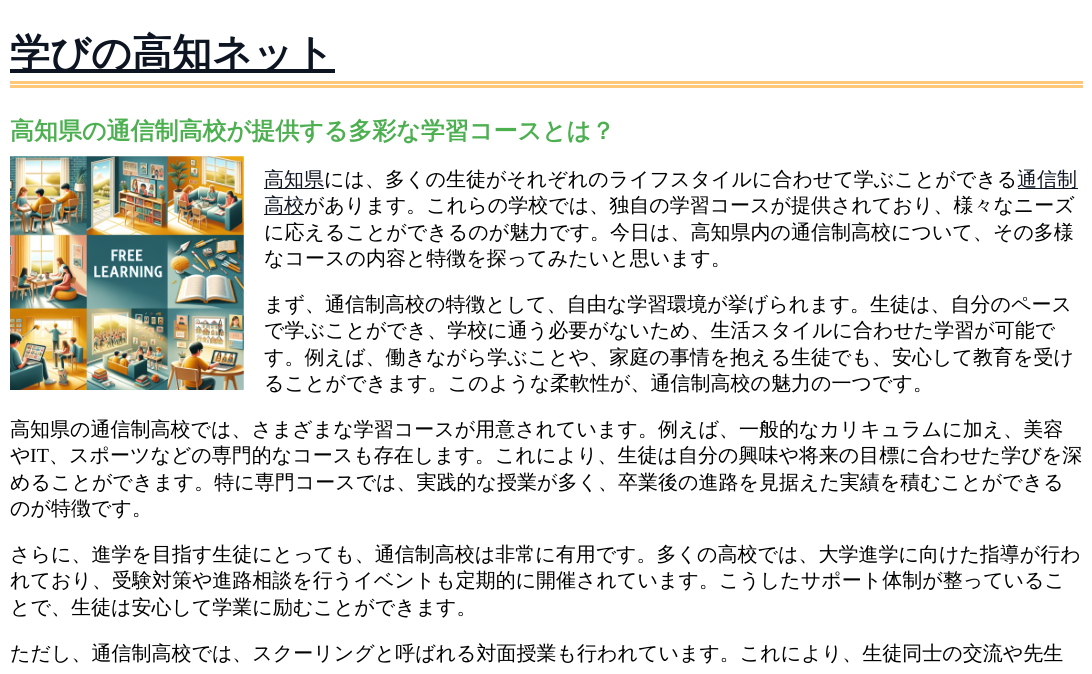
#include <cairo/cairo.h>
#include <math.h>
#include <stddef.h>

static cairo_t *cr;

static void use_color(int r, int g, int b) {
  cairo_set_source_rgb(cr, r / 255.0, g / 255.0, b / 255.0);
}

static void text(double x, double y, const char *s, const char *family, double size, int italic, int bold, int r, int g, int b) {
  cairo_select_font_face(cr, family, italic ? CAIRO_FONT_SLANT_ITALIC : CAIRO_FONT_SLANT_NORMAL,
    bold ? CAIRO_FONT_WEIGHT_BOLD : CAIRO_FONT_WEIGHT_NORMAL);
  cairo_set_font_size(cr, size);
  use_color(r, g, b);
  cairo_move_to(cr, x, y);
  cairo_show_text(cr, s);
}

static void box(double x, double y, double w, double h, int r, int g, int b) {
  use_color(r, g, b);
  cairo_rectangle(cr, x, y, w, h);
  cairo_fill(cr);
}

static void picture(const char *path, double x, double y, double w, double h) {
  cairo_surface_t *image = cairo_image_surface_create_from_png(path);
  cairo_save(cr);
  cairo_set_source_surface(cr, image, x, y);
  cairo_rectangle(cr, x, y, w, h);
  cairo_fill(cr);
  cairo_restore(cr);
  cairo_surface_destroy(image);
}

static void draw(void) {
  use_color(255, 255, 255);
  cairo_paint(cr);
  box(10, 81, 1073, 3, 255, 199, 120);
  box(10, 85, 1073, 3, 255, 199, 120);
  box(10, 69, 325, 4, 14, 21, 34);
  picture("img_01.png", 10, 156, 234, 234);
  box(264, 188, 60, 1, 14, 21, 34);
  box(1018, 188, 60, 1, 14, 21, 34);
  box(264, 214, 40, 1, 14, 21, 34);
  text(10, 67, "学びの高知ネット", "WenQuanYi Zen Hei", 40, 0, 1, 14, 21, 34);
  text(10, 139, "高知県の通信制高校が提供する多彩な学習コースとは？", "WenQuanYi Zen Hei", 24, 0, 1, 76, 175, 80);
  text(264, 186, "高知県", "WenQuanYi Zen Hei Medium", 20, 0, 0, 14, 21, 34);
  text(324, 186, "には、多くの生徒がそれぞれのライフスタイルに合わせて学ぶことができる", "WenQuanYi Zen Hei Medium", 20, 0, 0, 0, 0, 0);
  text(1017, 186, "通信制", "WenQuanYi Zen Hei Medium", 20, 0, 0, 14, 21, 34);
  text(264, 212, "高校", "WenQuanYi Zen Hei Medium", 20, 0, 0, 14, 21, 34);
  text(304, 212, "があります。これらの学校では、独自の学習コースが提供されており、様々なニーズ", "WenQuanYi Zen Hei Medium", 20, 0, 0, 0, 0, 0);
  text(264, 239, "に応えることができるのが魅力です。今日は、高知県内の通信制高校について、その多様", "WenQuanYi Zen Hei Medium", 20, 0, 0, 0, 0, 0);
  text(264, 265, "なコースの内容と特徴を探ってみたいと思います。", "WenQuanYi Zen Hei Medium", 20, 0, 0, 0, 0, 0);
  text(264, 311, "まず、通信制高校の特徴として、自由な学習環境が挙げられます。生徒は、自分のペース", "WenQuanYi Zen Hei Medium", 20, 0, 0, 0, 0, 0);
  text(264, 337, "で学ぶことができ、学校に通う必要がないため、生活スタイルに合わせた学習が可能で", "WenQuanYi Zen Hei Medium", 20, 0, 0, 0, 0, 0);
  text(264, 364, "す。例えば、働きながら学ぶことや、家庭の事情を抱える生徒でも、安心して教育を受け", "WenQuanYi Zen Hei Medium", 20, 0, 0, 0, 0, 0);
  text(264, 390, "ることができます。このような柔軟性が、通信制高校の魅力の一つです。", "WenQuanYi Zen Hei Medium", 20, 0, 0, 0, 0, 0);
  text(10, 436, "高知県の通信制高校では、さまざまな学習コースが用意されています。例えば、一般的なカリキュラムに加え、美容", "WenQuanYi Zen Hei Medium", 20, 0, 0, 0, 0, 0);
  text(10, 462, "や", "WenQuanYi Zen Hei Medium", 20, 0, 0, 0, 0, 0);
  text(30, 462, "IT", "Liberation Serif", 20, 0, 0, 0, 0, 0);
  text(49, 462, "、スポーツなどの専門的なコースも存在します。これにより、生徒は自分の興味や将来の目標に合わせた学びを深", "WenQuanYi Zen Hei Medium", 20, 0, 0, 0, 0, 0);
  text(10, 489, "めることができます。特に専門コースでは、実践的な授業が多く、卒業後の進路を見据えた実績を積むことができる", "WenQuanYi Zen Hei Medium", 20, 0, 0, 0, 0, 0);
  text(10, 515, "のが特徴です。", "WenQuanYi Zen Hei Medium", 20, 0, 0, 0, 0, 0);
  text(10, 561, "さらに、進学を目指す生徒にとっても、通信制高校は非常に有用です。多くの高校では、大学進学に向けた指導が行わ", "WenQuanYi Zen Hei Medium", 20, 0, 0, 0, 0, 0);
  text(10, 587, "れており、受験対策や進路相談を行うイベントも定期的に開催されています。こうしたサポート体制が整っているこ", "WenQuanYi Zen Hei Medium", 20, 0, 0, 0, 0, 0);
  text(10, 614, "とで、生徒は安心して学業に励むことができます。", "WenQuanYi Zen Hei Medium", 20, 0, 0, 0, 0, 0);
  text(10, 660, "ただし、通信制高校では、スクーリングと呼ばれる対面授業も行われています。これにより、生徒同士の交流や先生", "WenQuanYi Zen Hei Medium", 20, 0, 0, 0, 0, 0);
}

int main(void) {
  cairo_surface_t *surface = cairo_image_surface_create(CAIRO_FORMAT_RGB24, 1092, 674);
  cr = cairo_create(surface);
  cairo_font_options_t *options = cairo_font_options_create();
  cairo_font_options_set_hint_metrics(options, CAIRO_HINT_METRICS_OFF);
  cairo_font_options_set_hint_style(options, CAIRO_HINT_STYLE_NONE);
  cairo_set_font_options(cr, options);
  cairo_set_miter_limit(cr, 4);
  draw();
  cairo_surface_write_to_png(surface, "out.png");
  cairo_font_options_destroy(options);
  cairo_destroy(cr);
  cairo_surface_destroy(surface);
  return 0;
}
